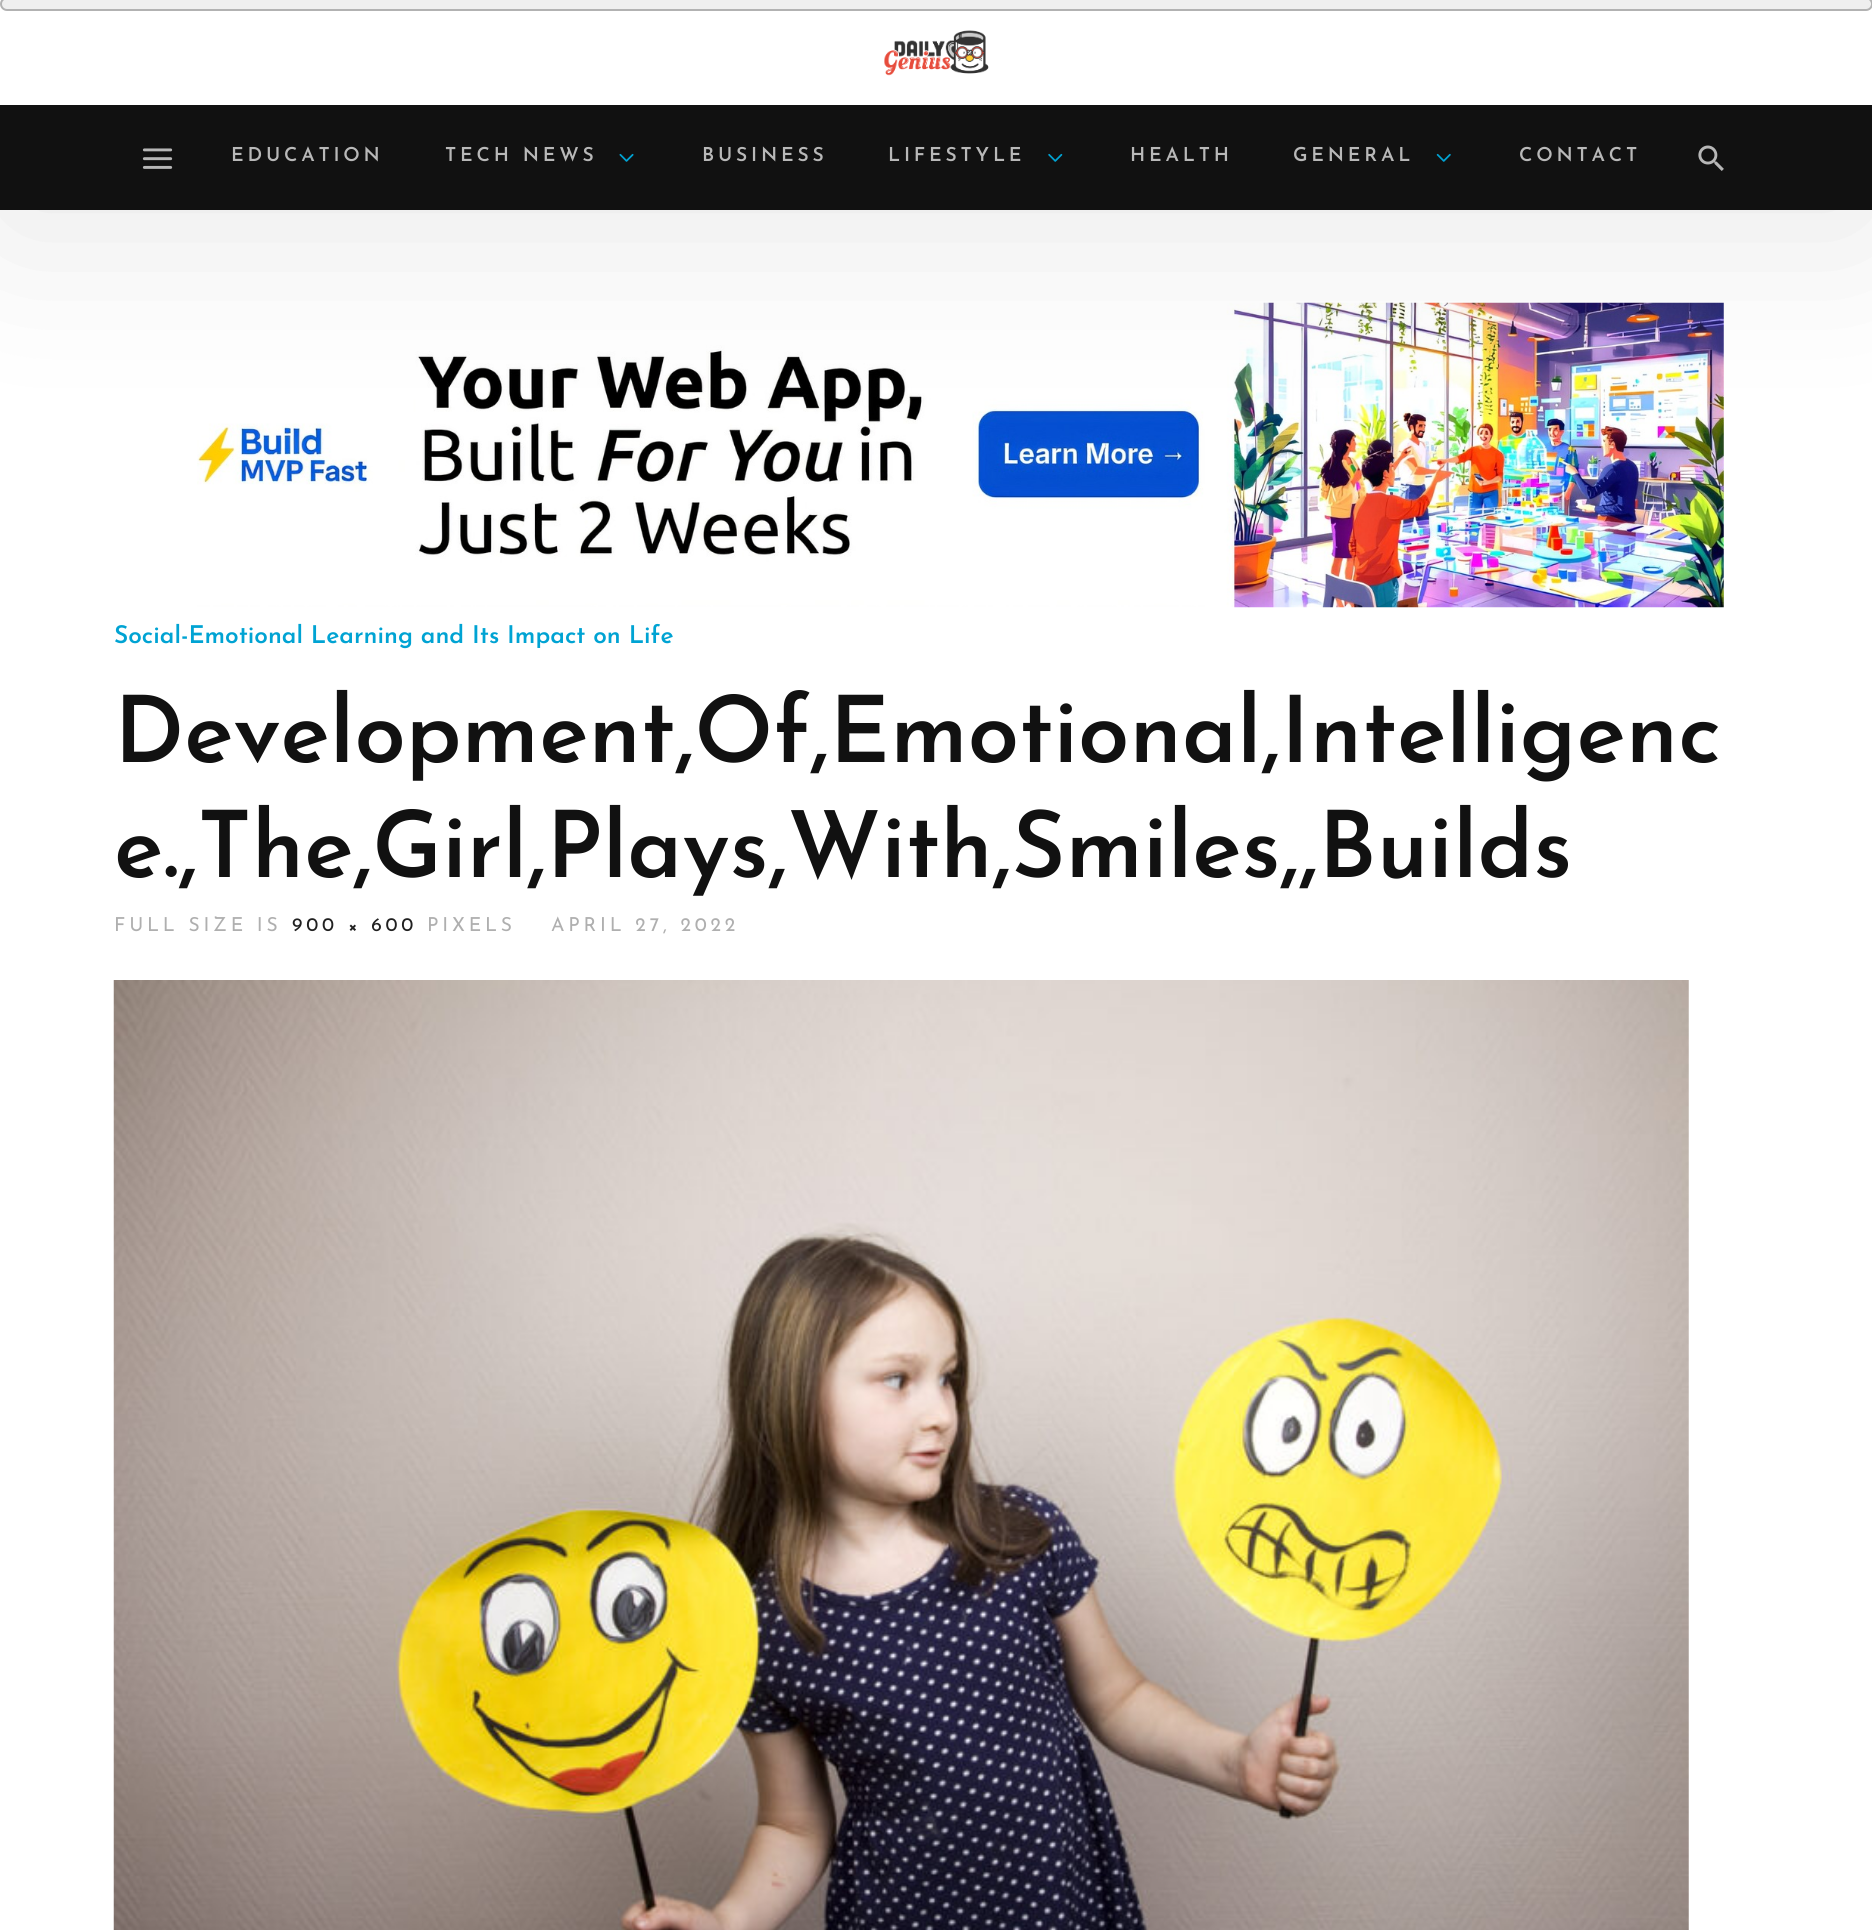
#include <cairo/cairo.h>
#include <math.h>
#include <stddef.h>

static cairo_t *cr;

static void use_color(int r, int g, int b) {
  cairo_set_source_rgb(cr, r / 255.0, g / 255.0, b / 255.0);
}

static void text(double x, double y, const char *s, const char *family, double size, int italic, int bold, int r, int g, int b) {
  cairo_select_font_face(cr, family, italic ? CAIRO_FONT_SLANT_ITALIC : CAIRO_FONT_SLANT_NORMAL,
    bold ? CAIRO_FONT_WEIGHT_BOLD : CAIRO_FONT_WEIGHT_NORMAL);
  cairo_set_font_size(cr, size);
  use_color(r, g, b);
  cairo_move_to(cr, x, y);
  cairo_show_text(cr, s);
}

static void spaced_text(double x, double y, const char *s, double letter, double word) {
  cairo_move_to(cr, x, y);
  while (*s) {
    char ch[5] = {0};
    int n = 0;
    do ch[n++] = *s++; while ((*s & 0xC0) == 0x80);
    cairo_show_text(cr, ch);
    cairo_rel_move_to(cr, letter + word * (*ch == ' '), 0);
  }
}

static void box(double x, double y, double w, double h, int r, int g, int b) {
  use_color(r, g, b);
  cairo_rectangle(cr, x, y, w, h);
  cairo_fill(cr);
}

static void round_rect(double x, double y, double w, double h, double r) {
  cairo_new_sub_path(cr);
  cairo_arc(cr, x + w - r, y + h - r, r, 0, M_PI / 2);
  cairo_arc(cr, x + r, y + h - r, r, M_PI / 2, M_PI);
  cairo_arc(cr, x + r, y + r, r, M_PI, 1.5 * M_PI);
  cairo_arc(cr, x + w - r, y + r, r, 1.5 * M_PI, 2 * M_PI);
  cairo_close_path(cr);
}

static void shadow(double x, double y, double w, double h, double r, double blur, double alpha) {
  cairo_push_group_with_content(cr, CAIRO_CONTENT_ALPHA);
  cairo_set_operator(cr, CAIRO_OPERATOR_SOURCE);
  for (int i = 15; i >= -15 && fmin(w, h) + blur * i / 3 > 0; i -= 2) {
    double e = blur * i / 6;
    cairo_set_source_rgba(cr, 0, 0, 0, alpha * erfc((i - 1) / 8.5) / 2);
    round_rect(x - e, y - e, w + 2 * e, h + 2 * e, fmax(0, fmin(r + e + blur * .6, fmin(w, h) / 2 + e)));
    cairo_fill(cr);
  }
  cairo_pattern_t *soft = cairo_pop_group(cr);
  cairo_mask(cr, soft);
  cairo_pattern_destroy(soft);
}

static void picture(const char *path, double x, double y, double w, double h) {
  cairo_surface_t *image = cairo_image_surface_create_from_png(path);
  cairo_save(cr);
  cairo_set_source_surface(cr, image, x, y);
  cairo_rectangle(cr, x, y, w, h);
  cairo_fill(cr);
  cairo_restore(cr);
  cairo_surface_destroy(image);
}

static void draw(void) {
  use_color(255, 255, 255);
  cairo_paint(cr);
  picture("img_07.png", 197, 302, 1527, 306);
  use_color(0, 0, 0);
  shadow(0, 18, 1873, 210, 0, 87.5, 0.1);
  box(0, 0, 1872, 105, 255, 255, 255);
  use_color(239, 239, 239);
  round_rect(1, -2, 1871, 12, 6);
  cairo_fill_preserve(cr);
  use_color(178, 178, 178);
  cairo_stroke(cr);
  picture("img_01.png", 884, 30, 105, 46);
  box(0, 105, 1872, 105, 17, 17, 17);
  picture("img_02.png", 142, 148, 31, 21);
  picture("img_03.png", 619, 153, 15, 9);
  picture("img_04.png", 1048, 153, 15, 9);
  picture("img_05.png", 1436, 153, 15, 9);
  picture("img_06.png", 1698, 145, 26, 26);
  picture("img_08.png", 113, 980, 1576, 950);
  cairo_select_font_face(cr, "Josefin Sans SemiBold", CAIRO_FONT_SLANT_NORMAL, CAIRO_FONT_WEIGHT_NORMAL);
  cairo_set_font_size(cr, 19.25);
  use_color(184, 184, 184);
  spaced_text(231, 161, "EDUCATION", 3.8, 0);
  spaced_text(445, 161, "TECH NEWS", 3.8, 0);
  spaced_text(702, 161, "BUSINESS", 3.8, 0);
  spaced_text(888, 161, "LIFESTYLE", 3.8, 0);
  spaced_text(1130, 161, "HEALTH", 3.8, 0);
  spaced_text(1293, 161, "GENERAL", 3.8, 0);
  spaced_text(1519, 161, "CONTACT", 3.8, 0);
  text(114, 643, "Social-Emotional Learning and Its Impact on Life", "Josefin Sans SemiBold", 24.5, 0, 0, 0, 163, 211);
  text(114, 762, "Development,Of,Emotional,Intelligenc", "Josefin Sans SemiBold", 92.4, 0, 0, 17, 17, 17);
  text(114, 877, "e.,The,Girl,Plays,With,Smiles,,Builds", "Josefin Sans SemiBold", 92.4, 0, 0, 17, 17, 17);
  cairo_select_font_face(cr, "Josefin Sans", CAIRO_FONT_SLANT_NORMAL, CAIRO_FONT_WEIGHT_NORMAL);
  cairo_set_font_size(cr, 19.25);
  use_color(175, 175, 175);
  spaced_text(114, 931, "FULL SIZE IS", 3.8, 0);
  use_color(33, 33, 33);
  spaced_text(292, 931, "900 × 600", 3.8, 0);
  use_color(175, 175, 175);
  spaced_text(427, 931, "PIXELS", 3.8, 0);
  spaced_text(551, 931, "APRIL 27, 2022", 3.8, 0);
}

int main(void) {
  cairo_surface_t *surface = cairo_image_surface_create(CAIRO_FORMAT_RGB24, 1872, 1930);
  cr = cairo_create(surface);
  cairo_font_options_t *options = cairo_font_options_create();
  cairo_font_options_set_hint_metrics(options, CAIRO_HINT_METRICS_OFF);
  cairo_font_options_set_hint_style(options, CAIRO_HINT_STYLE_NONE);
  cairo_set_font_options(cr, options);
  cairo_set_miter_limit(cr, 4);
  draw();
  cairo_surface_write_to_png(surface, "out.png");
  cairo_font_options_destroy(options);
  cairo_destroy(cr);
  cairo_surface_destroy(surface);
  return 0;
}
